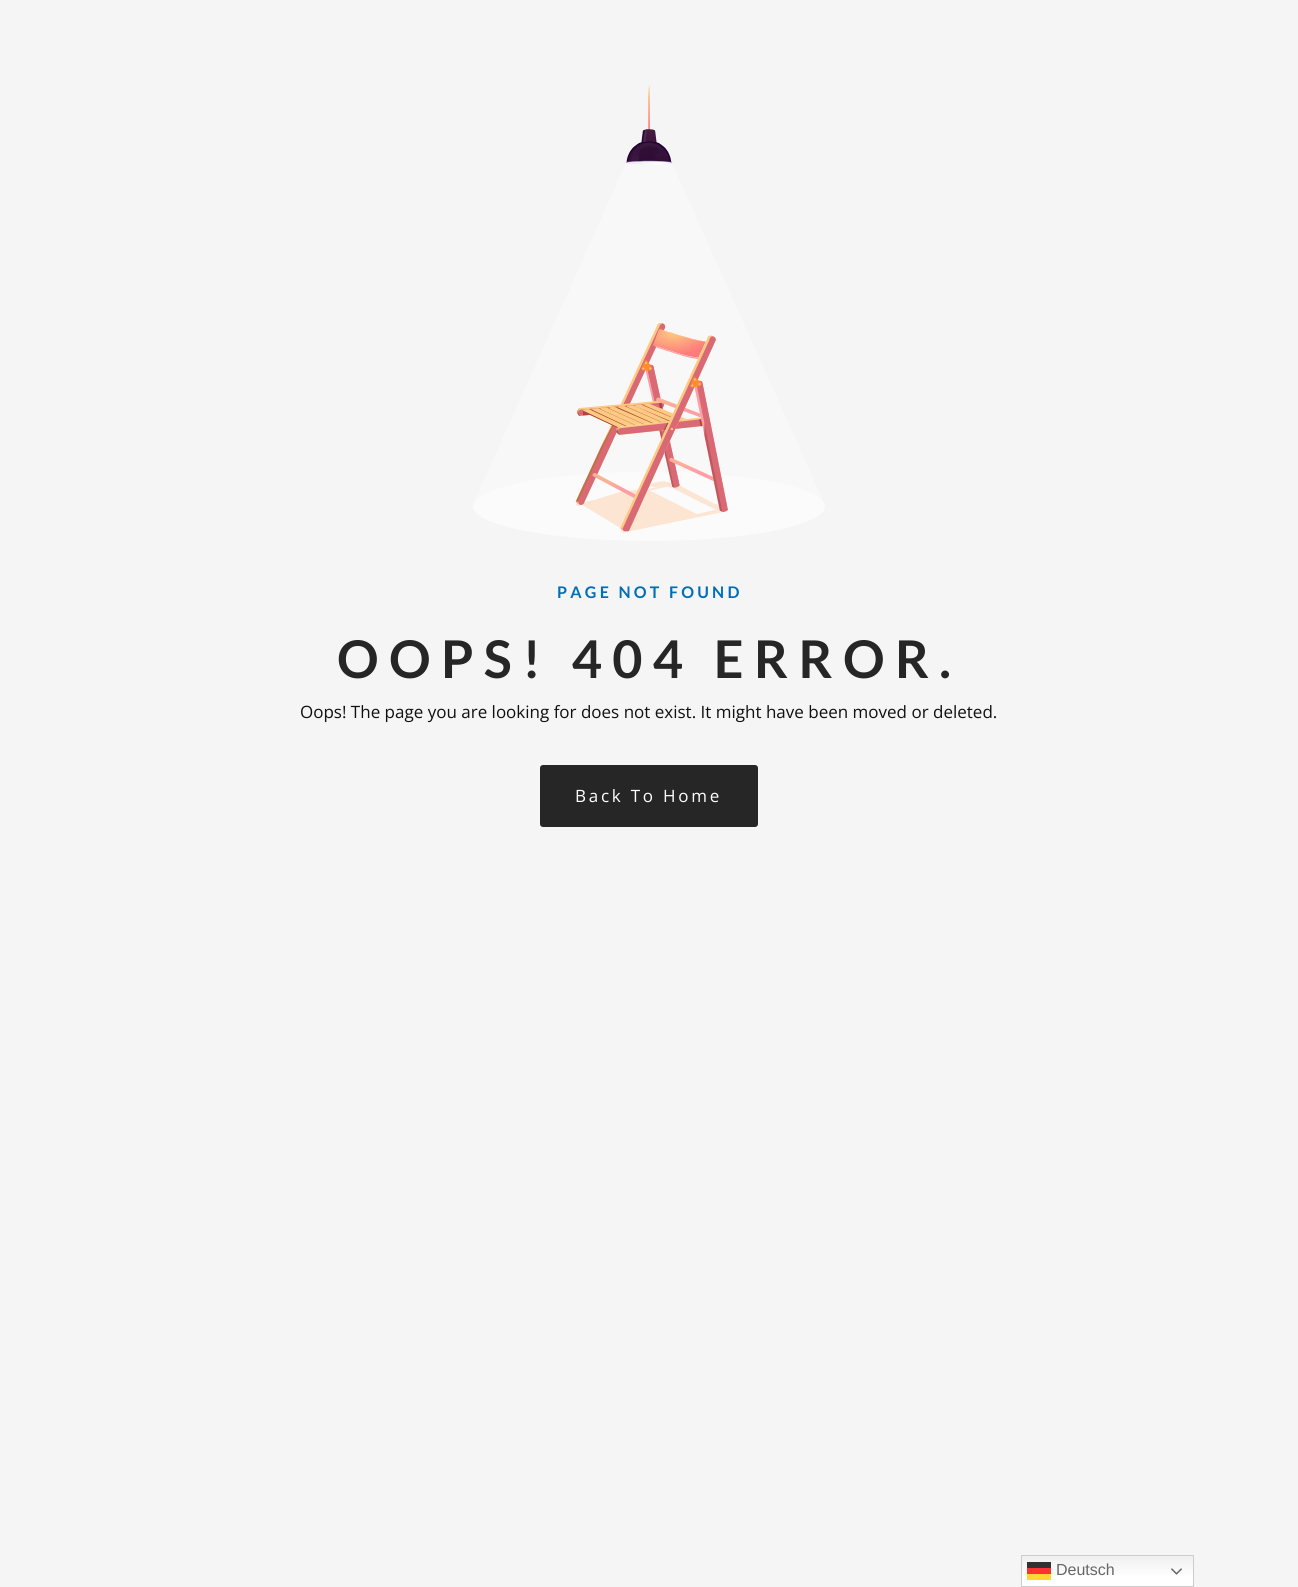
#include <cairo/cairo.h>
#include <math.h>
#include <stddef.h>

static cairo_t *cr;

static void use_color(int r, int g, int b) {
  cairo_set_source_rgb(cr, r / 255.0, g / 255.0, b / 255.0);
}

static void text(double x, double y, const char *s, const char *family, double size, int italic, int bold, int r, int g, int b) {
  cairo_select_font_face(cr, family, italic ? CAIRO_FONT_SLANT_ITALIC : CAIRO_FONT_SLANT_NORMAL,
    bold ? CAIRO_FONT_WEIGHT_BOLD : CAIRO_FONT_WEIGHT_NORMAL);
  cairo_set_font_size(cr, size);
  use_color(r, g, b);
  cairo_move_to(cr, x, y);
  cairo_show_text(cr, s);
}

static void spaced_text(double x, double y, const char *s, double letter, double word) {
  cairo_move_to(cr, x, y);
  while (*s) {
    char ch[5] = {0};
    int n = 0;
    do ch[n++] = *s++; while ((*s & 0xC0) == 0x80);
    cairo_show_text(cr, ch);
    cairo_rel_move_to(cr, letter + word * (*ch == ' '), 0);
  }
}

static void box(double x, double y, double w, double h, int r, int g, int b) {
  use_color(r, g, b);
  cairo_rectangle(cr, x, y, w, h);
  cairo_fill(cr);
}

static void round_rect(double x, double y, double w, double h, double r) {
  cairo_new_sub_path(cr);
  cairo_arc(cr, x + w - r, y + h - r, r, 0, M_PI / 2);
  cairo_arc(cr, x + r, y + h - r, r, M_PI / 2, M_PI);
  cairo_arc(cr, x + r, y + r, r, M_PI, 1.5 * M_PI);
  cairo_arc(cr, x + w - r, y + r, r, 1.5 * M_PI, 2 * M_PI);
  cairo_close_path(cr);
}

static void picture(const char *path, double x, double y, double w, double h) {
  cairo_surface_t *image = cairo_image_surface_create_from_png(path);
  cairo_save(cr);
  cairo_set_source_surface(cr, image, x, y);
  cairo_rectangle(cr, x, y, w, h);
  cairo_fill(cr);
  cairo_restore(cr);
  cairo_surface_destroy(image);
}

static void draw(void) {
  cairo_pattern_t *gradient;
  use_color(245, 245, 245);
  cairo_paint(cr);
  picture("img_01.png", 473, 85, 352, 456);
  use_color(38, 38, 38);
  round_rect(540, 765, 218, 62, 3);
  cairo_fill(cr);
  gradient = cairo_pattern_create_linear(1108, 1555, 1108, 1587);
  cairo_pattern_add_color_stop_rgba(gradient, 0, 0.937, 0.937, 0.937, 1);
  cairo_pattern_add_color_stop_rgba(gradient, 0.7, 1, 1, 1, 1);
  cairo_set_source(cr, gradient);
  cairo_pattern_destroy(gradient);
  cairo_rectangle(cr, 1022, 1556, 171, 30);
  cairo_fill(cr);
  gradient = cairo_pattern_create_linear(1108, 1555, 1108, 1587);
  cairo_pattern_add_color_stop_rgba(gradient, 0, 0.988, 0.188, 0.188, 1);
  cairo_pattern_add_color_stop_rgba(gradient, 0.7, 1, 0.2, 0.2, 1);
  cairo_set_source(cr, gradient);
  cairo_pattern_destroy(gradient);
  cairo_rectangle(cr, 1027, 1568, 24, 6);
  cairo_fill(cr);
  gradient = cairo_pattern_create_linear(1108, 1555, 1108, 1587);
  cairo_pattern_add_color_stop_rgba(gradient, 0, 0.188, 0.188, 0.188, 1);
  cairo_pattern_add_color_stop_rgba(gradient, 0.7, 0.2, 0.2, 0.2, 1);
  cairo_set_source(cr, gradient);
  cairo_pattern_destroy(gradient);
  cairo_rectangle(cr, 1027, 1562, 24, 6);
  cairo_fill(cr);
  cairo_rectangle(cr, 1021.5, 1555.5, 172, 31);
  use_color(204, 204, 204);
  cairo_set_line_width(cr, 1);
  cairo_stroke(cr);
  picture("img_02.png", 1171, 1568, 11, 7);
  box(1027, 1574, 24, 6, 255, 214, 51);
  cairo_select_font_face(cr, "Lato", CAIRO_FONT_SLANT_NORMAL, CAIRO_FONT_WEIGHT_BOLD);
  cairo_set_font_size(cr, 16);
  use_color(0, 111, 184);
  spaced_text(557, 598, "PAGE NOT FOUND", 3.25, 0);
  cairo_set_font_size(cr, 52);
  use_color(38, 38, 38);
  spaced_text(337, 678, "OOPS! 404 ERROR.", 10.4, 0);
  text(300, 718, "Oops! The page you are looking for does not exist. It might have been moved or deleted.", "Open Sans", 17, 0, 0, 16, 16, 16);
  use_color(255, 255, 255);
  spaced_text(575, 802, "Back To Home", 2.75, 0);
  text(1056, 1575, "Deutsch", "Liberation Sans", 16, 0, 0, 102, 102, 102);
}

int main(void) {
  cairo_surface_t *surface = cairo_image_surface_create(CAIRO_FORMAT_RGB24, 1298, 1587);
  cr = cairo_create(surface);
  cairo_font_options_t *options = cairo_font_options_create();
  cairo_font_options_set_hint_metrics(options, CAIRO_HINT_METRICS_OFF);
  cairo_font_options_set_hint_style(options, CAIRO_HINT_STYLE_NONE);
  cairo_set_font_options(cr, options);
  cairo_set_miter_limit(cr, 4);
  draw();
  cairo_surface_write_to_png(surface, "out.png");
  cairo_font_options_destroy(options);
  cairo_destroy(cr);
  cairo_surface_destroy(surface);
  return 0;
}
